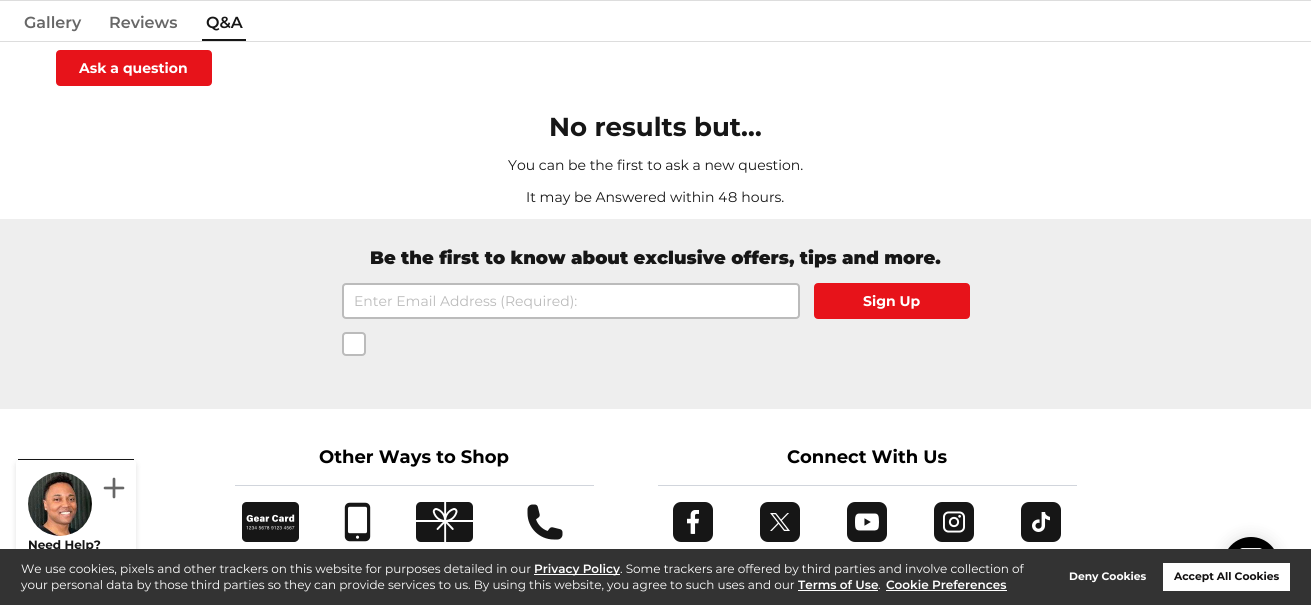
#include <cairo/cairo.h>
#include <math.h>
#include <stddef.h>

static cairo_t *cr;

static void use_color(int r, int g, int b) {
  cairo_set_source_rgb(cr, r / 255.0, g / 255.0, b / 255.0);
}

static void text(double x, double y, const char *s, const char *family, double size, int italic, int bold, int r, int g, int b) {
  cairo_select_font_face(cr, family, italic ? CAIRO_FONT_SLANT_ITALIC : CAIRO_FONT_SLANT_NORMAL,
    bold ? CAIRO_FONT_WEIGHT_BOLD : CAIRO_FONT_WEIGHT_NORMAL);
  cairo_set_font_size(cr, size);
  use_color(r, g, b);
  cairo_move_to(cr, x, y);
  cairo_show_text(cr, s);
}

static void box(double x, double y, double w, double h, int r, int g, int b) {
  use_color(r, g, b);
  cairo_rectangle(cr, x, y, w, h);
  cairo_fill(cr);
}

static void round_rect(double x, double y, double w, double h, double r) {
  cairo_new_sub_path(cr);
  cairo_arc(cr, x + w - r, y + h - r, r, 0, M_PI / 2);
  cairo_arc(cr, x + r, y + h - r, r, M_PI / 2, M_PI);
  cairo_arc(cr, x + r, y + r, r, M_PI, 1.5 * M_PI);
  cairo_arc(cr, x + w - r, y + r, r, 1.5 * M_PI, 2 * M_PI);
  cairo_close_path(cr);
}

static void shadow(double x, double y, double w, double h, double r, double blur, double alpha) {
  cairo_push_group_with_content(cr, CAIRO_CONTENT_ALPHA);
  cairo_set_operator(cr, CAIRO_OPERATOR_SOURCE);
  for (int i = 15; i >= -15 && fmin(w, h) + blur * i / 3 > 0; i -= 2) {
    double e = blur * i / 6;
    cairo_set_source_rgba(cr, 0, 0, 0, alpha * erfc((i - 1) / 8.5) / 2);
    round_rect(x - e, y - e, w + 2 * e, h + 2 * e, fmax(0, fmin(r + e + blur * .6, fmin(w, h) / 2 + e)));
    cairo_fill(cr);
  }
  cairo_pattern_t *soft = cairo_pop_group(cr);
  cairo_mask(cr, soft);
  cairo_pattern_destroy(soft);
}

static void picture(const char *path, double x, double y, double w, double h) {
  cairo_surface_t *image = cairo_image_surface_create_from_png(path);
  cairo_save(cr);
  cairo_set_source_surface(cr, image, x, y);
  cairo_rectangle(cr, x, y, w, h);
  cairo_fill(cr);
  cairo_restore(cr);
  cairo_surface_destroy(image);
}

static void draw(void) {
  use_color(255, 255, 255);
  cairo_paint(cr);
  box(0, 0, 1311, 1, 221, 221, 221);
  box(0, 41, 1311, 1, 221, 221, 221);
  box(202, 39, 44, 2, 22, 22, 22);
  use_color(231, 19, 26);
  round_rect(57, 51, 154, 34, 3);
  cairo_fill_preserve(cr);
  cairo_stroke(cr);
  use_color(0, 0, 0);
  shadow(16, 462, 120, 95, 4, 3, 0.12);
  use_color(255, 255, 255);
  cairo_new_path(cr);
  cairo_move_to(cr, 20, 460);
  cairo_line_to(cr, 132, 460);
  cairo_curve_to(cr, 134, 460, 136, 461, 136, 463);
  cairo_line_to(cr, 136, 550);
  cairo_curve_to(cr, 136, 552, 134, 554, 132, 554);
  cairo_line_to(cr, 20, 554);
  cairo_curve_to(cr, 18, 554, 16, 552, 16, 550);
  cairo_line_to(cr, 16, 463);
  cairo_curve_to(cr, 16, 461, 18, 460, 20, 460);
  cairo_close_path(cr);
  cairo_fill(cr);
  box(18, 459, 116, 1, 22, 22, 22);
  picture("img_01.png", 28, 472, 64, 64);
  cairo_new_path(cr);
  cairo_move_to(cr, 114, 479);
  cairo_line_to(cr, 114, 497);
  cairo_move_to(cr, 123, 488);
  cairo_line_to(cr, 105, 488);
  use_color(103, 103, 103);
  cairo_set_line_width(cr, 2.7);
  cairo_set_line_cap(cr, CAIRO_LINE_CAP_ROUND);
  cairo_set_line_join(cr, CAIRO_LINE_JOIN_ROUND);
  cairo_stroke(cr);
  box(0, 219, 1311, 190, 238, 238, 238);
  use_color(255, 255, 255);
  round_rect(343, 284, 456, 34, 3);
  cairo_fill_preserve(cr);
  use_color(187, 187, 187);
  cairo_set_line_width(cr, 2);
  cairo_set_line_cap(cr, CAIRO_LINE_CAP_BUTT);
  cairo_set_line_join(cr, CAIRO_LINE_JOIN_MITER);
  cairo_stroke(cr);
  use_color(255, 255, 255);
  round_rect(343, 333, 22, 22, 3);
  cairo_fill_preserve(cr);
  use_color(187, 187, 187);
  cairo_stroke(cr);
  use_color(231, 19, 26);
  round_rect(815, 284, 154, 34, 3);
  cairo_fill_preserve(cr);
  cairo_stroke(cr);
  box(235, 485, 359, 1, 209, 213, 220);
  picture("img_02.png", 242, 502, 57, 40);
  picture("img_03.png", 344, 502, 27, 40);
  picture("img_04.png", 416, 502, 57, 40);
  picture("img_05.png", 527, 504, 36, 36);
  box(658, 485, 419, 1, 209, 213, 220);
  picture("img_06.png", 673, 502, 40, 40);
  picture("img_07.png", 760, 502, 40, 40);
  picture("img_08.png", 847, 502, 40, 40);
  picture("img_09.png", 934, 502, 40, 40);
  picture("img_10.png", 1021, 502, 40, 40);
  use_color(0, 0, 0);
  shadow(1223, 537, 56, 56, 28, 8, 0.13);
  use_color(0, 0, 0);
  cairo_arc(cr, 1251, 565, 28, 0, 2 * M_PI);
  cairo_fill(cr);
  picture("img_11.png", 1240, 548, 22, 1);
  text(24, 28, "Gallery", "Montserrat SemiBold", 16, 0, 0, 103, 103, 103);
  text(109, 28, "Reviews", "Montserrat SemiBold", 16, 0, 0, 103, 103, 103);
  text(206, 28, "Q&A", "Montserrat SemiBold", 16, 0, 0, 22, 22, 22);
  text(79, 73, "Ask a question", "Montserrat", 14, 0, 1, 255, 255, 255);
  text(549, 136, "No results but…", "Montserrat", 26, 0, 1, 22, 22, 22);
  text(508, 170, "You can be the first to ask a new question.", "Montserrat", 14, 0, 0, 22, 22, 22);
  text(526, 202, "It may be Answered within 48 hours.", "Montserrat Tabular", 14, 0, 0, 22, 22, 22);
  text(28, 549, "Need Help?", "Montserrat", 12, 0, 1, 22, 22, 22);
  text(370, 264, "Be the first to know about exclusive offers, tips and more.", "Montserrat Black", 18, 0, 0, 22, 22, 22);
  text(354, 306, "Enter Email Address (Required):", "Montserrat", 14, 0, 0, 187, 187, 187);
  text(863, 306, "Sign Up", "Montserrat", 14, 0, 1, 255, 255, 255);
  text(319, 463, "Other Ways to Shop", "Montserrat", 18, 0, 1, 0, 0, 0);
  text(787, 463, "Connect With Us", "Montserrat", 18, 0, 1, 0, 0, 0);
  box(0, 549, 1311, 56, 51, 51, 51);
  text(21, 573, "We use cookies, pixels and other trackers on this website for purposes detailed in our", "Montserrat", 12, 0, 0, 255, 255, 255);
  box(534, 574, 86, 1, 255, 255, 255);
  text(534, 573, "Privacy Policy", "Montserrat SemiBold", 12, 0, 0, 255, 255, 255);
  text(620, 573, ". Some trackers are offered by third parties and involve collection of", "Montserrat", 12, 0, 0, 255, 255, 255);
  text(21, 589, "your personal data by those third parties so they can provide services to us. By using this website, you agree to such uses and our", "Montserrat", 12, 0, 0, 255, 255, 255);
  text(798, 589, "Terms of Use", "Montserrat SemiBold", 12, 0, 0, 255, 255, 255);
  box(798, 590, 80, 1, 255, 255, 255);
  text(878, 589, ".", "Montserrat", 12, 0, 0, 255, 255, 255);
  text(886, 589, "Cookie Preferences", "Montserrat SemiBold", 12, 0, 0, 255, 255, 255);
  box(886, 590, 121, 1, 255, 255, 255);
  text(1069, 580, "Deny Cookies", "Montserrat", 10.75, 0, 1, 255, 255, 255);
  box(1163, 563, 127, 28, 255, 255, 255);
  text(1174, 580, "Accept All Cookies", "Montserrat", 10.75, 0, 1, 18, 16, 16);
}

int main(void) {
  cairo_surface_t *surface = cairo_image_surface_create(CAIRO_FORMAT_RGB24, 1311, 605);
  cr = cairo_create(surface);
  cairo_font_options_t *options = cairo_font_options_create();
  cairo_font_options_set_hint_metrics(options, CAIRO_HINT_METRICS_OFF);
  cairo_font_options_set_hint_style(options, CAIRO_HINT_STYLE_NONE);
  cairo_set_font_options(cr, options);
  cairo_set_miter_limit(cr, 4);
  draw();
  cairo_surface_write_to_png(surface, "out.png");
  cairo_font_options_destroy(options);
  cairo_destroy(cr);
  cairo_surface_destroy(surface);
  return 0;
}
